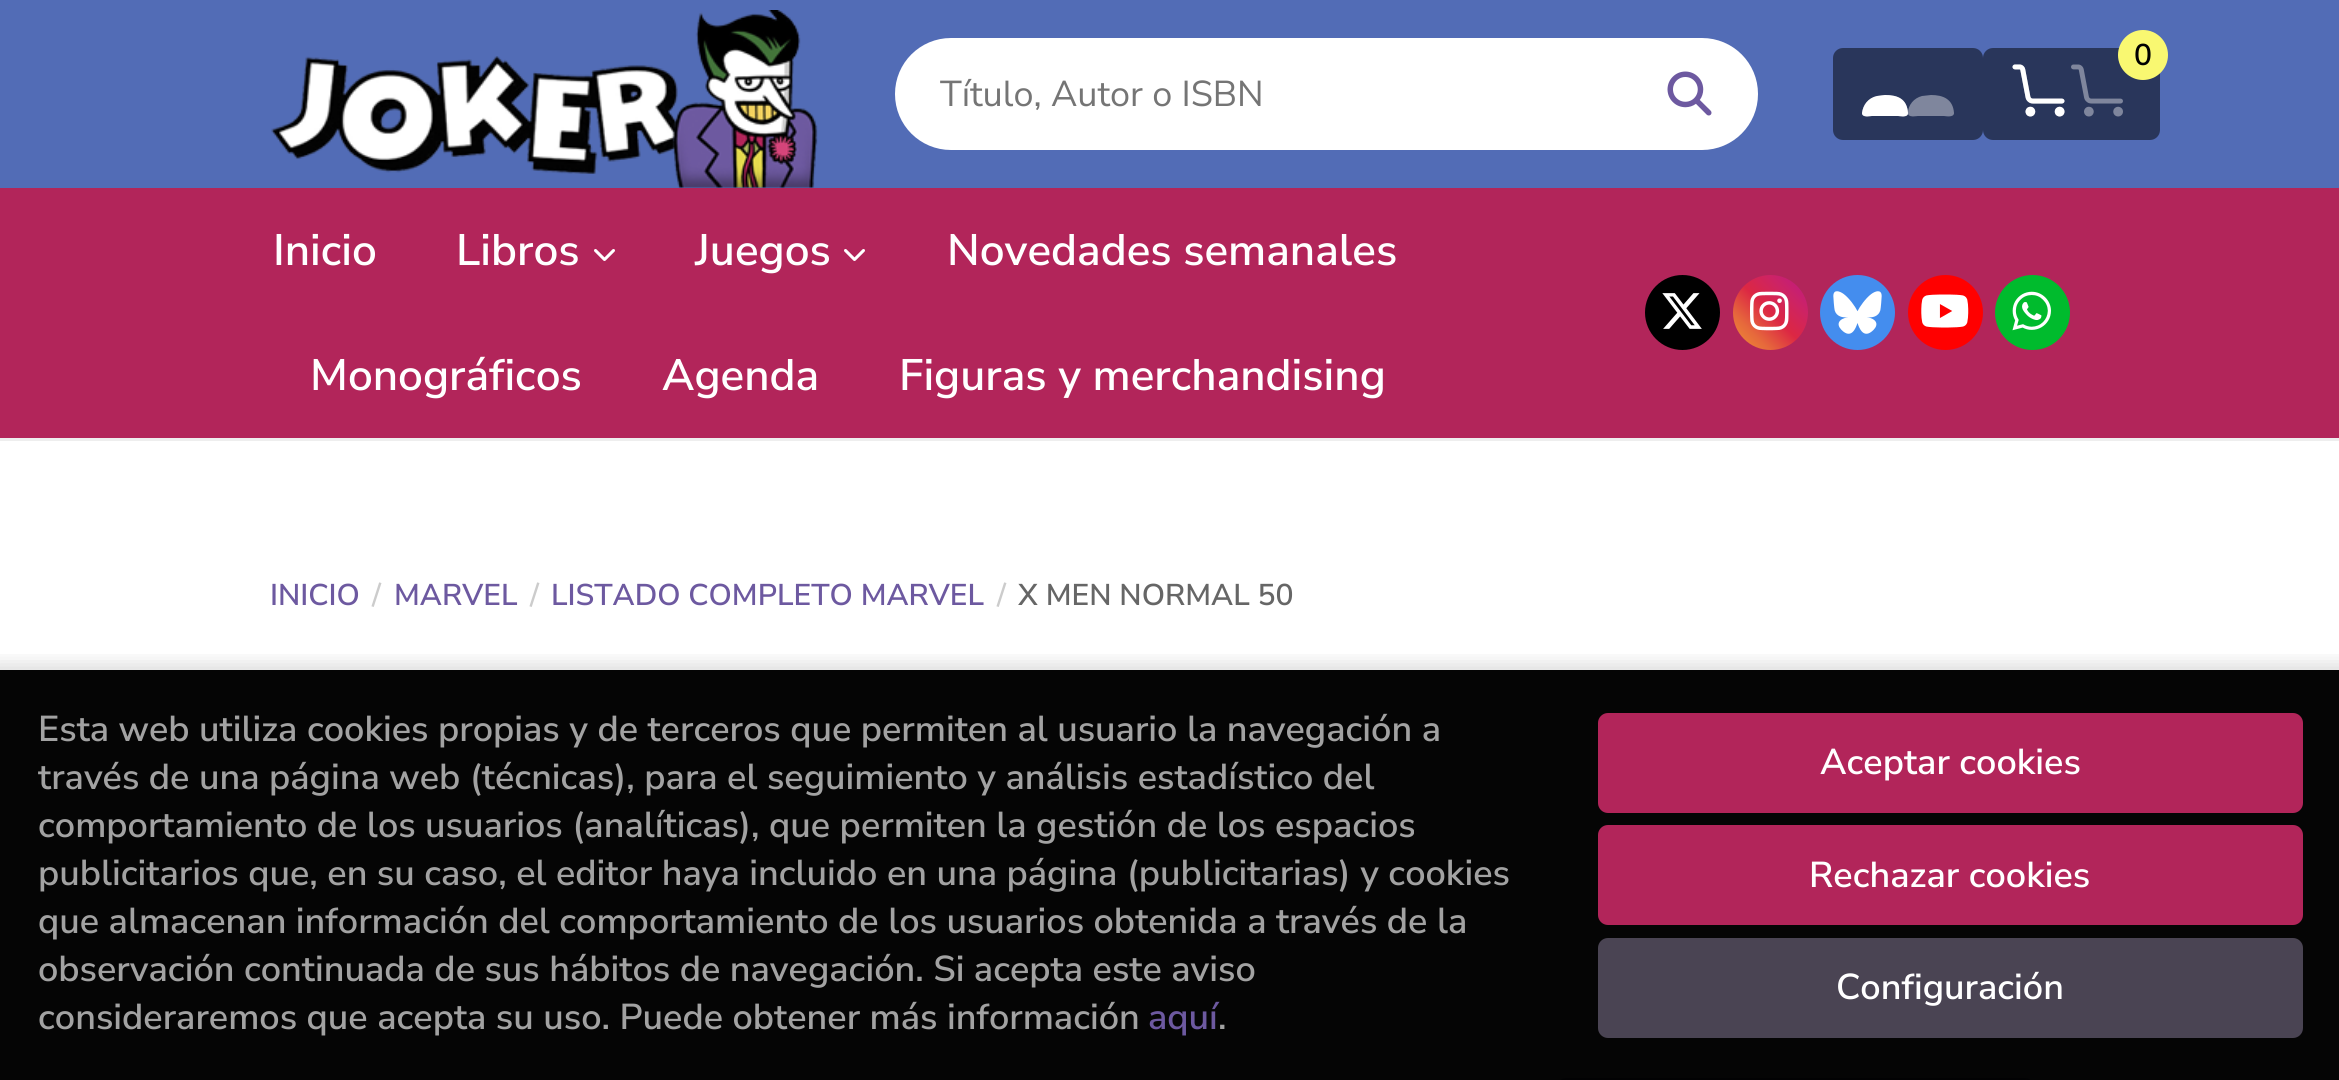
#include <cairo/cairo.h>
#include <math.h>
#include <stddef.h>

static cairo_t *cr;

static void use_color(int r, int g, int b) {
  cairo_set_source_rgb(cr, r / 255.0, g / 255.0, b / 255.0);
}

static void text(double x, double y, const char *s, const char *family, double size, int italic, int bold, int r, int g, int b) {
  cairo_select_font_face(cr, family, italic ? CAIRO_FONT_SLANT_ITALIC : CAIRO_FONT_SLANT_NORMAL,
    bold ? CAIRO_FONT_WEIGHT_BOLD : CAIRO_FONT_WEIGHT_NORMAL);
  cairo_set_font_size(cr, size);
  use_color(r, g, b);
  cairo_move_to(cr, x, y);
  cairo_show_text(cr, s);
}

static void box(double x, double y, double w, double h, int r, int g, int b) {
  use_color(r, g, b);
  cairo_rectangle(cr, x, y, w, h);
  cairo_fill(cr);
}

static void round_rect(double x, double y, double w, double h, double r) {
  cairo_new_sub_path(cr);
  cairo_arc(cr, x + w - r, y + h - r, r, 0, M_PI / 2);
  cairo_arc(cr, x + r, y + h - r, r, M_PI / 2, M_PI);
  cairo_arc(cr, x + r, y + r, r, M_PI, 1.5 * M_PI);
  cairo_arc(cr, x + w - r, y + r, r, 1.5 * M_PI, 2 * M_PI);
  cairo_close_path(cr);
}

static void shadow(double x, double y, double w, double h, double r, double blur, double alpha) {
  cairo_push_group_with_content(cr, CAIRO_CONTENT_ALPHA);
  cairo_set_operator(cr, CAIRO_OPERATOR_SOURCE);
  for (int i = 15; i >= -15 && fmin(w, h) + blur * i / 3 > 0; i -= 2) {
    double e = blur * i / 6;
    cairo_set_source_rgba(cr, 0, 0, 0, alpha * erfc((i - 1) / 8.5) / 2);
    round_rect(x - e, y - e, w + 2 * e, h + 2 * e, fmax(0, fmin(r + e + blur * .6, fmin(w, h) / 2 + e)));
    cairo_fill(cr);
  }
  cairo_pattern_t *soft = cairo_pop_group(cr);
  cairo_mask(cr, soft);
  cairo_pattern_destroy(soft);
}

static void picture(const char *path, double x, double y, double w, double h) {
  cairo_surface_t *image = cairo_image_surface_create_from_png(path);
  cairo_save(cr);
  cairo_set_source_surface(cr, image, x, y);
  cairo_rectangle(cr, x, y, w, h);
  cairo_fill(cr);
  cairo_restore(cr);
  cairo_surface_destroy(image);
}

static void draw(void) {
  cairo_pattern_t *gradient;
  use_color(255, 255, 255);
  cairo_paint(cr);
  box(0, 670, 2339, 410, 5, 5, 5);
  box(0, 0, 2339, 188, 82, 108, 182);
  picture("img_01.png", 271, 10, 547, 178);
  use_color(41, 54, 91);
  round_rect(1833, 48, 150, 92, 10);
  cairo_fill(cr);
  use_color(255, 255, 255);
  cairo_new_path(cr);
  cairo_move_to(cr, 1862, 113);
  cairo_curve_to(cr, 1863, 105, 1868, 98, 1877, 96);
  cairo_line_to(cr, 1885, 95);
  cairo_curve_to(cr, 1898, 95, 1907, 99, 1908, 113);
  cairo_curve_to(cr, 1908, 118, 1900, 116, 1898, 116);
  cairo_line_to(cr, 1872, 116);
  cairo_curve_to(cr, 1870, 116, 1862, 118, 1862, 113);
  cairo_close_path(cr);
  cairo_fill(cr);
  cairo_set_source_rgba(cr, 1, 1, 1, 0.4);
  cairo_new_path(cr);
  cairo_move_to(cr, 1862, 113);
  cairo_curve_to(cr, 1863, 105, 1868, 98, 1877, 96);
  cairo_line_to(cr, 1885, 95);
  cairo_curve_to(cr, 1898, 95, 1907, 99, 1908, 113);
  cairo_curve_to(cr, 1908, 118, 1900, 116, 1898, 116);
  cairo_line_to(cr, 1872, 116);
  cairo_curve_to(cr, 1870, 116, 1862, 118, 1862, 113);
  cairo_close_path(cr);
  cairo_move_to(cr, 1908, 113);
  cairo_curve_to(cr, 1908, 105, 1914, 98, 1922, 96);
  cairo_line_to(cr, 1931, 95);
  cairo_curve_to(cr, 1943, 95, 1953, 99, 1954, 113);
  cairo_curve_to(cr, 1954, 118, 1945, 116, 1944, 116);
  cairo_line_to(cr, 1918, 116);
  cairo_curve_to(cr, 1916, 116, 1908, 118, 1908, 113);
  cairo_close_path(cr);
  cairo_fill(cr);
  use_color(41, 54, 91);
  round_rect(1983, 48, 177, 92, 10);
  cairo_fill(cr);
  picture("img_02.png", 2012, 64, 53, 53);
  picture("img_03.png", 2012, 64, 111, 53);
  use_color(249, 248, 113);
  cairo_arc(cr, 2143, 55, 25, 0, 2 * M_PI);
  cairo_fill(cr);
  use_color(255, 255, 255);
  cairo_new_path(cr);
  cairo_move_to(cr, 951, 38);
  cairo_line_to(cr, 1620, 38);
  cairo_line_to(cr, 1620, 150);
  cairo_line_to(cr, 951, 150);
  cairo_curve_to(cr, 920, 150, 895, 125, 895, 94);
  cairo_curve_to(cr, 895, 63, 920, 38, 951, 38);
  cairo_close_path(cr);
  cairo_fill(cr);
  cairo_new_path(cr);
  cairo_move_to(cr, 1620, 38);
  cairo_line_to(cr, 1702, 38);
  cairo_curve_to(cr, 1733, 38, 1758, 63, 1758, 94);
  cairo_curve_to(cr, 1758, 125, 1733, 150, 1702, 150);
  cairo_line_to(cr, 1620, 150);
  cairo_close_path(cr);
  cairo_fill(cr);
  picture("img_04.png", 1667, 71, 45, 45);
  box(0, 188, 2339, 250, 178, 37, 90);
  box(0, 438, 2339, 3, 238, 238, 238);
  picture("img_05.png", 594, 249, 21, 12);
  picture("img_05.png", 844, 249, 21, 12);
  use_color(0, 0, 0);
  cairo_arc(cr, 1682.5, 312.5, 37.5, 0, 2 * M_PI);
  cairo_fill(cr);
  picture("img_06.png", 1662, 293, 40, 36);
  gradient = cairo_pattern_create_linear(1733, 350, 1808, 275);
  cairo_pattern_add_color_stop_rgba(gradient, 0, 0.941, 0.58, 0.2, 1);
  cairo_pattern_add_color_stop_rgba(gradient, 0.25, 0.902, 0.408, 0.235, 1);
  cairo_pattern_add_color_stop_rgba(gradient, 0.5, 0.863, 0.153, 0.263, 1);
  cairo_pattern_add_color_stop_rgba(gradient, 0.75, 0.8, 0.137, 0.4, 1);
  cairo_pattern_add_color_stop_rgba(gradient, 1, 0.737, 0.094, 0.533, 1);
  cairo_set_source(cr, gradient);
  cairo_pattern_destroy(gradient);
  cairo_arc(cr, 1770.5, 312.5, 37.5, 0, 2 * M_PI);
  cairo_fill(cr);
  picture("img_07.png", 1750, 291, 39, 40);
  use_color(68, 141, 238);
  cairo_arc(cr, 1857.5, 312.5, 37.5, 0, 2 * M_PI);
  cairo_fill(cr);
  picture("img_08.png", 1833, 291, 49, 43);
  use_color(255, 0, 0);
  cairo_arc(cr, 1945.5, 312.5, 37.5, 0, 2 * M_PI);
  cairo_fill(cr);
  picture("img_09.png", 1921, 294, 48, 34);
  use_color(0, 187, 45);
  cairo_arc(cr, 2032.5, 312.5, 37.5, 0, 2 * M_PI);
  cairo_fill(cr);
  picture("img_10.png", 2012, 291, 39, 40);
  round_rect(1559.5, 1079.5, 472, 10, 6.5);
  use_color(2, 2, 3);
  cairo_set_line_width(cr, 3);
  cairo_stroke(cr);
  cairo_save(cr);
  cairo_rectangle(cr, 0, 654, 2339, 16);
  cairo_clip(cr);
  use_color(0, 0, 0);
  shadow(-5, 665, 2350, 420, 0, 10, 0.15);
  cairo_restore(cr);
  use_color(178, 37, 90);
  round_rect(1598, 713, 705, 100, 10);
  cairo_fill(cr);
  round_rect(1598, 825, 705, 100, 10);
  cairo_fill(cr);
  use_color(74, 68, 83);
  round_rect(1598, 938, 705, 100, 10);
  cairo_fill(cr);
  text(2134, 65, "0", "Nunito Sans SemiBold", 30, 0, 0, 0, 0, 0);
  text(940, 106, "Título, Autor o ISBN", "Nunito Sans", 36, 0, 0, 117, 117, 117);
  text(273, 265, "Inicio", "Nunito Sans SemiBold", 44, 0, 0, 255, 255, 255);
  text(456, 265, "Libros", "Nunito Sans SemiBold", 44, 0, 0, 255, 255, 255);
  text(695, 265, "Juegos", "Nunito Sans SemiBold", 44, 0, 0, 255, 255, 255);
  text(947, 265, "Novedades semanales", "Nunito Sans SemiBold", 44, 0, 0, 255, 255, 255);
  text(310, 390, "Monográficos", "Nunito Sans SemiBold", 44, 0, 0, 255, 255, 255);
  text(662, 390, "Agenda", "Nunito Sans SemiBold", 44, 0, 0, 255, 255, 255);
  text(899, 390, "Figuras y merchandising", "Nunito Sans SemiBold", 44, 0, 0, 255, 255, 255);
  text(270, 605, "INICIO", "Nunito Sans SemiBold", 30, 0, 0, 109, 89, 160);
  text(372, 605, "/", "Nunito Sans SemiBold", 30, 0, 0, 204, 204, 204);
  text(394, 605, "MARVEL", "Nunito Sans SemiBold", 30, 0, 0, 109, 89, 160);
  text(530, 605, "/", "Nunito Sans SemiBold", 30, 0, 0, 204, 204, 204);
  text(551, 605, "LISTADO COMPLETO MARVEL", "Nunito Sans SemiBold", 30, 0, 0, 109, 89, 160);
  text(997, 605, "/", "Nunito Sans SemiBold", 30, 0, 0, 204, 204, 204);
  text(1018, 605, "X MEN NORMAL 50", "Nunito Sans SemiBold", 30, 0, 0, 102, 102, 102);
  text(38, 741, "Esta web utiliza cookies propias y de terceros que permiten al usuario la navegación a", "Nunito Sans SemiBold", 36, 0, 0, 162, 162, 162);
  text(38, 789, "través de una página web (técnicas), para el seguimiento y análisis estadístico del", "Nunito Sans SemiBold", 36, 0, 0, 162, 162, 162);
  text(38, 837, "comportamiento de los usuarios (analíticas), que permiten la gestión de los espacios", "Nunito Sans SemiBold", 36, 0, 0, 162, 162, 162);
  text(38, 885, "publicitarios que, en su caso, el editor haya incluido en una página (publicitarias) y cookies", "Nunito Sans SemiBold", 36, 0, 0, 162, 162, 162);
  text(38, 933, "que almacenan información del comportamiento de los usuarios obtenida a través de la", "Nunito Sans SemiBold", 36, 0, 0, 162, 162, 162);
  text(38, 981, "observación continuada de sus hábitos de navegación. Si acepta este aviso", "Nunito Sans SemiBold", 36, 0, 0, 162, 162, 162);
  text(38, 1029, "consideraremos que acepta su uso. Puede obtener más información", "Nunito Sans SemiBold", 36, 0, 0, 162, 162, 162);
  text(1148, 1029, "aquí", "Nunito Sans SemiBold", 36, 0, 0, 109, 89, 160);
  text(1218, 1029, ".", "Nunito Sans SemiBold", 36, 0, 0, 162, 162, 162);
  text(1820, 774, "Aceptar cookies", "Nunito Sans SemiBold", 36, 0, 0, 255, 255, 255);
  text(1809, 887, "Rechazar cookies", "Nunito Sans SemiBold", 36, 0, 0, 255, 255, 255);
  text(1836, 999, "Configuración", "Nunito Sans SemiBold", 36, 0, 0, 255, 255, 255);
}

int main(void) {
  cairo_surface_t *surface = cairo_image_surface_create(CAIRO_FORMAT_RGB24, 2339, 1080);
  cr = cairo_create(surface);
  cairo_font_options_t *options = cairo_font_options_create();
  cairo_font_options_set_hint_metrics(options, CAIRO_HINT_METRICS_OFF);
  cairo_font_options_set_hint_style(options, CAIRO_HINT_STYLE_NONE);
  cairo_set_font_options(cr, options);
  cairo_set_miter_limit(cr, 4);
  draw();
  cairo_surface_write_to_png(surface, "out.png");
  cairo_font_options_destroy(options);
  cairo_destroy(cr);
  cairo_surface_destroy(surface);
  return 0;
}
